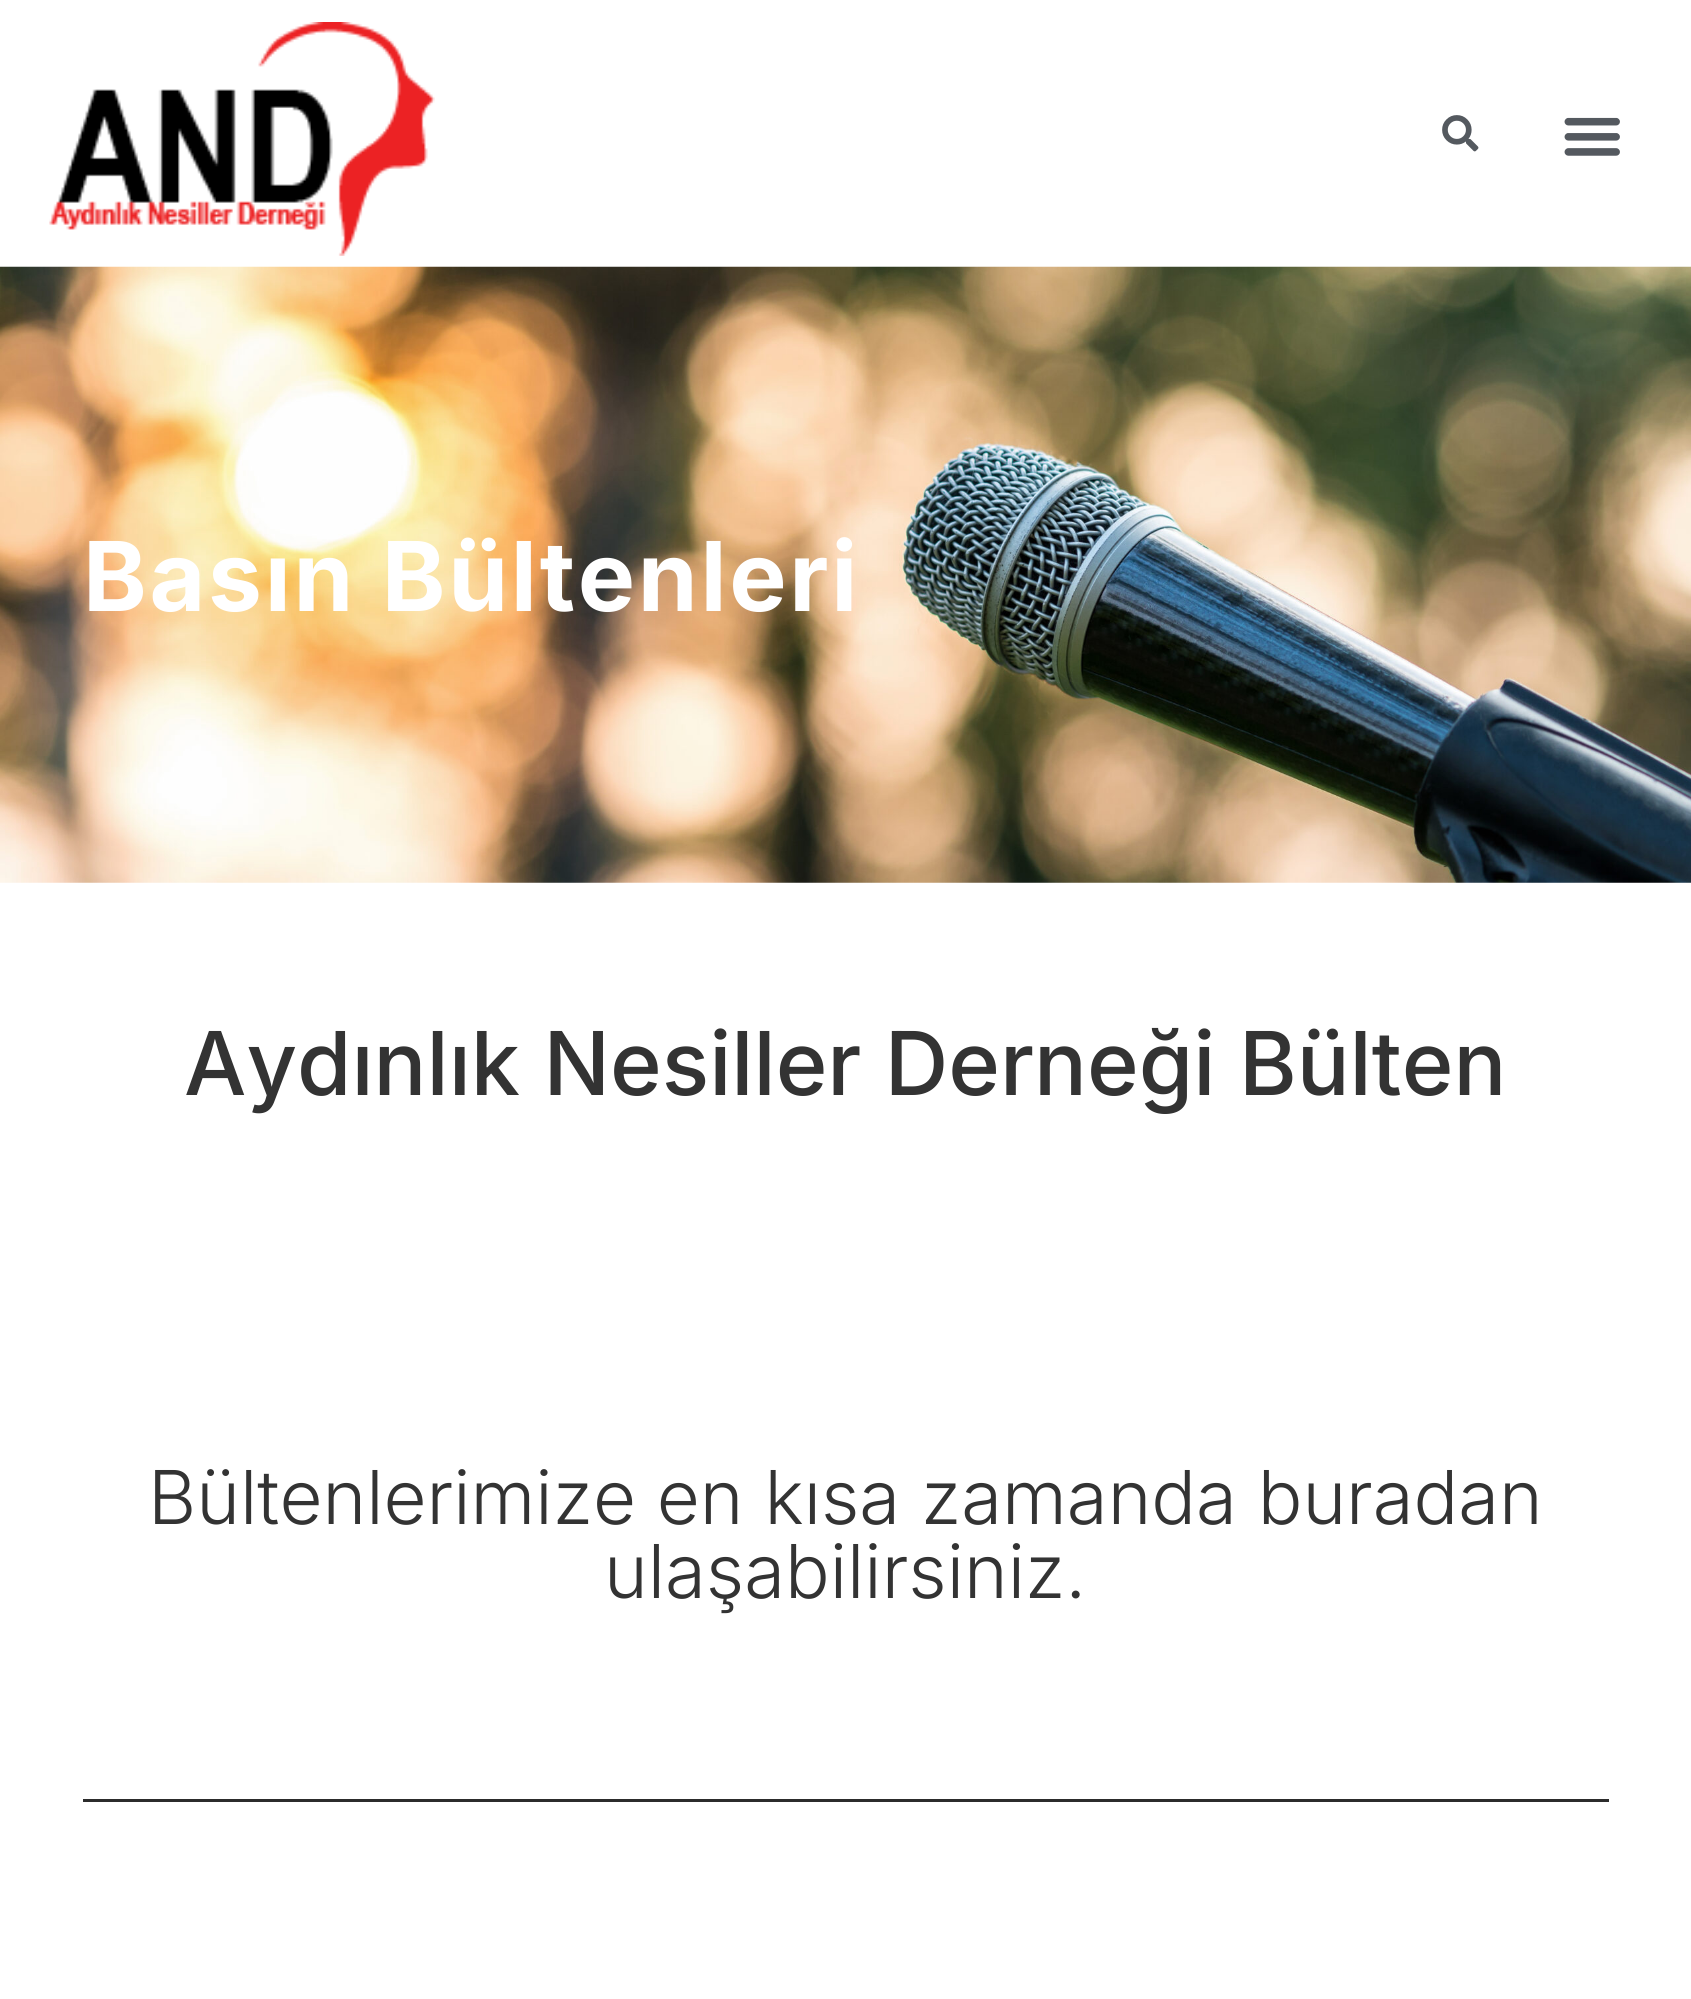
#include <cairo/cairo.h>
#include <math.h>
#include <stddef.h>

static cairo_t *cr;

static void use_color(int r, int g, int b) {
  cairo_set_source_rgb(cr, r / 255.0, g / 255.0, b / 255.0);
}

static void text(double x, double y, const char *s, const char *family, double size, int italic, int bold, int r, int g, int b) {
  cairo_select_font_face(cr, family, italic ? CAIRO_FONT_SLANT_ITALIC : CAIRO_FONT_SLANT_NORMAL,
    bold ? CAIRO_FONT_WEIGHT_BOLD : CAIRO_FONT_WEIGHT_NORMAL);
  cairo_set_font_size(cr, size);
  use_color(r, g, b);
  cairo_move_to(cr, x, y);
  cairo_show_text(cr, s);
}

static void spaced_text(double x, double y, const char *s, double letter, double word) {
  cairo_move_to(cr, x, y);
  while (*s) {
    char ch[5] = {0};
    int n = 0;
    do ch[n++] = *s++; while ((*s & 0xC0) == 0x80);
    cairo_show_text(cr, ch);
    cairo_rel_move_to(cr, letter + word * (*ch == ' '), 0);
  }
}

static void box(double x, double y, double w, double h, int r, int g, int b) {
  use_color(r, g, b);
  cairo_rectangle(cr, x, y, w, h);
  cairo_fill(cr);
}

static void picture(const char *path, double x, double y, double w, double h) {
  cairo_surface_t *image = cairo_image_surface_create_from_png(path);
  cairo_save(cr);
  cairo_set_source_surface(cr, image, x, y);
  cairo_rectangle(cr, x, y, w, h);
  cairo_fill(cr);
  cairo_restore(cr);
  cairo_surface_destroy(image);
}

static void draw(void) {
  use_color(255, 255, 255);
  cairo_paint(cr);
  picture("img_01.png", 49, 22, 386, 234);
  picture("img_02.png", 1442, 115, 37, 37);
  picture("img_03.png", 1564, 117, 56, 39);
  picture("img_04.png", 0, 266, 1691, 617);
  box(83, 1799, 1526, 3, 44, 44, 44);
  cairo_select_font_face(cr, "Inter", CAIRO_FONT_SLANT_NORMAL, CAIRO_FONT_WEIGHT_BOLD);
  cairo_set_font_size(cr, 96.25);
  use_color(255, 255, 255);
  spaced_text(83, 611, "Basın Bültenleri", 2.75, 0);
  text(184, 1095, "Aydınlık Nesiller Derneği Bülten", "Inter Medium", 88, 0, 0, 51, 51, 51);
  text(148, 1524, "Bültenlerimize en kısa zamanda buradan", "Inter Light", 74.25, 0, 0, 51, 51, 51);
  text(604, 1598, "ulaşabilirsiniz.", "Inter Light", 74.25, 0, 0, 51, 51, 51);
}

int main(void) {
  cairo_surface_t *surface = cairo_image_surface_create(CAIRO_FORMAT_RGB24, 1691, 1999);
  cr = cairo_create(surface);
  cairo_font_options_t *options = cairo_font_options_create();
  cairo_font_options_set_hint_metrics(options, CAIRO_HINT_METRICS_OFF);
  cairo_font_options_set_hint_style(options, CAIRO_HINT_STYLE_NONE);
  cairo_set_font_options(cr, options);
  cairo_set_miter_limit(cr, 4);
  draw();
  cairo_surface_write_to_png(surface, "out.png");
  cairo_font_options_destroy(options);
  cairo_destroy(cr);
  cairo_surface_destroy(surface);
  return 0;
}
